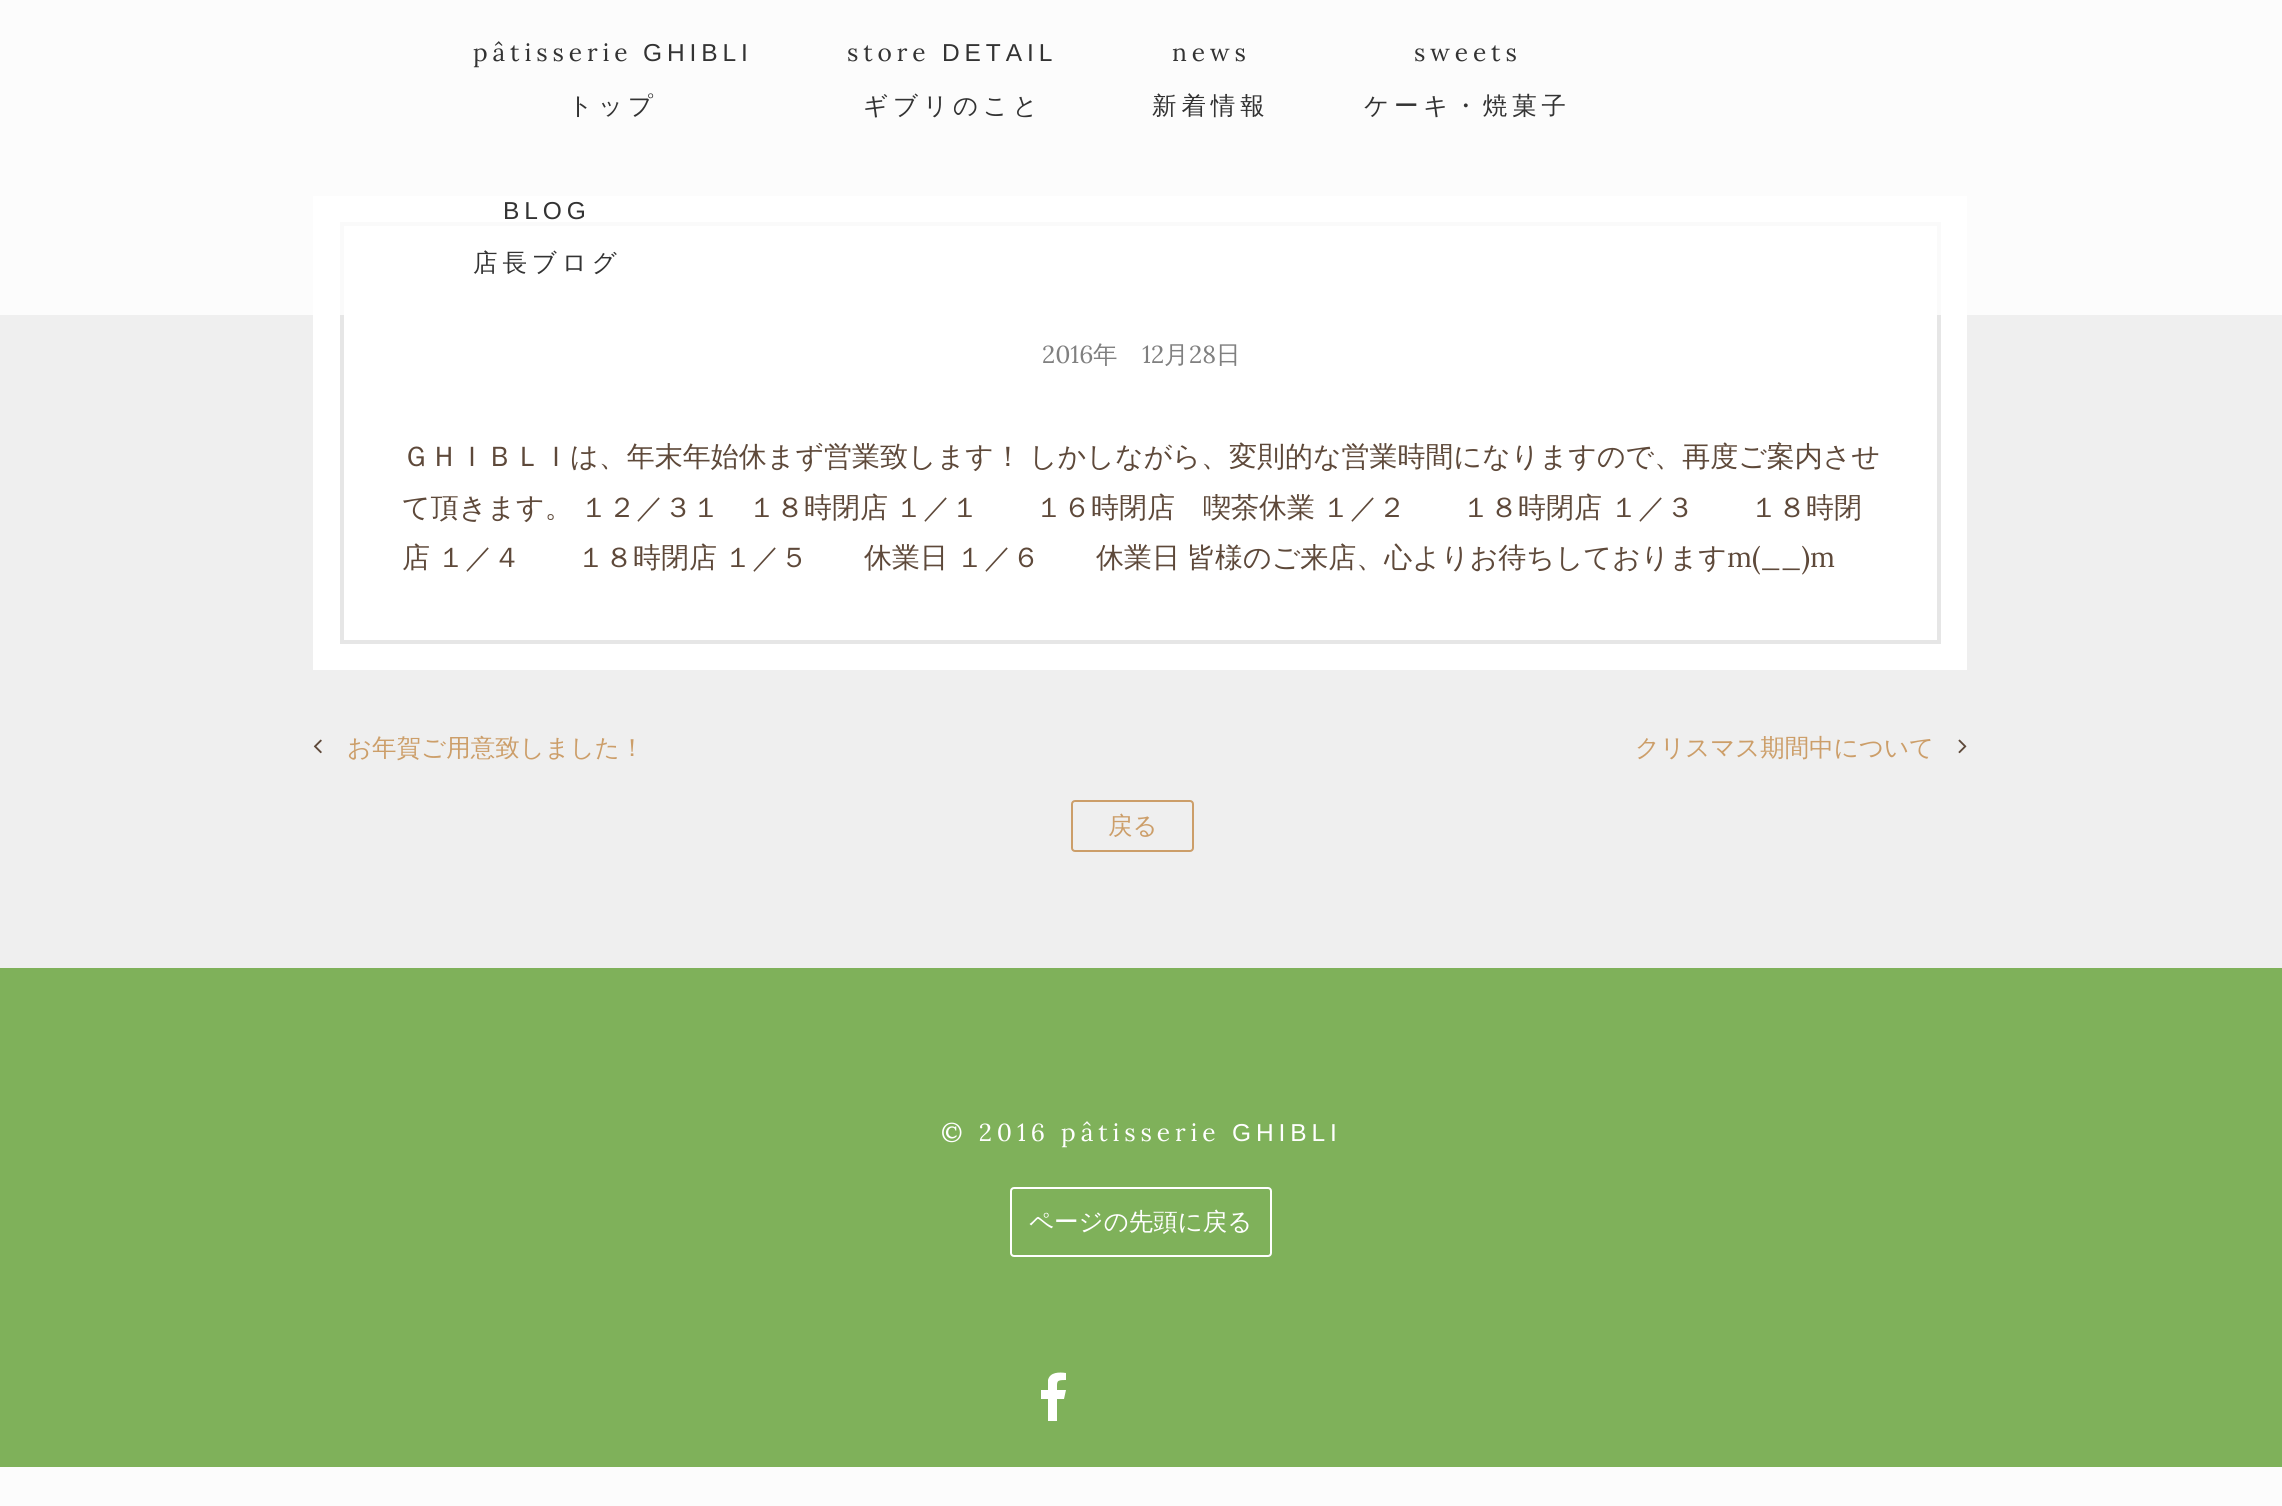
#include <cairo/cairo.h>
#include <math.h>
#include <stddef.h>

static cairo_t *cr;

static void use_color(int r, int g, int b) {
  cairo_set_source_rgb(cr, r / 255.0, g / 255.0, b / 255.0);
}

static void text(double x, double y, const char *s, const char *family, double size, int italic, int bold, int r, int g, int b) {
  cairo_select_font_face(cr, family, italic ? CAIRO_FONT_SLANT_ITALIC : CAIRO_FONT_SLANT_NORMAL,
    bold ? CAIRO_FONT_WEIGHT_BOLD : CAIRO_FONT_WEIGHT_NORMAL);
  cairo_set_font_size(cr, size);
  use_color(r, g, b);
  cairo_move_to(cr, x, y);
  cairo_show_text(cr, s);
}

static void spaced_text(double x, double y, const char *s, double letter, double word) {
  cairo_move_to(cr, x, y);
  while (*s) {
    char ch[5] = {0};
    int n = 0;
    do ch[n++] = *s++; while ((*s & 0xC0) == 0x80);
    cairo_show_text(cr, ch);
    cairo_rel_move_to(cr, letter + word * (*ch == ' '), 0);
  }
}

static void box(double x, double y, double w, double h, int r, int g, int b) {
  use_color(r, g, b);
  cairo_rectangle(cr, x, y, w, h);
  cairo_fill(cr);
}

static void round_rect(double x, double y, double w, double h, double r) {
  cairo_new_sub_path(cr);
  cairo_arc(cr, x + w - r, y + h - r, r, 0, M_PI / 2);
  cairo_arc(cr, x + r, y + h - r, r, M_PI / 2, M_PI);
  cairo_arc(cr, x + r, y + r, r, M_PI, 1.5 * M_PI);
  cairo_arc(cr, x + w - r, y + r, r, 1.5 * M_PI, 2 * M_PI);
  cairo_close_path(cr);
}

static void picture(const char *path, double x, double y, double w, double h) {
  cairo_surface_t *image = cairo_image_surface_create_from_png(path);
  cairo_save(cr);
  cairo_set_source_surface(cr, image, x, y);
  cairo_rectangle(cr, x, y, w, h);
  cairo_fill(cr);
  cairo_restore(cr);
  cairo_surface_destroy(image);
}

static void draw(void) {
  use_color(252, 252, 252);
  cairo_paint(cr);
  box(0, 0, 2282, 968, 239, 239, 239);
  box(313, 196, 1654, 474, 255, 255, 255);
  cairo_rectangle(cr, 342, 224, 1597, 418);
  use_color(230, 230, 230);
  cairo_set_line_width(cr, 4);
  cairo_stroke(cr);
  cairo_set_source_rgba(cr, 1, 1, 1, 0.8);
  cairo_rectangle(cr, 0, 0, 2282, 315);
  cairo_fill(cr);
  picture("img_01.png", 313, 739, 9, 15);
  picture("img_02.png", 1958, 739, 9, 15);
  round_rect(1072, 801, 121, 50, 3);
  use_color(204, 158, 105);
  cairo_set_line_width(cr, 2);
  cairo_stroke(cr);
  box(0, 968, 2282, 499, 127, 177, 90);
  round_rect(1011, 1188, 260, 68, 3);
  use_color(255, 255, 255);
  cairo_stroke(cr);
  cairo_new_path(cr);
  cairo_move_to(cr, 1066, 1373);
  cairo_line_to(cr, 1066, 1380);
  cairo_curve_to(cr, 1056, 1380, 1057, 1381, 1057, 1390);
  cairo_line_to(cr, 1066, 1390);
  cairo_line_to(cr, 1064, 1399);
  cairo_line_to(cr, 1057, 1399);
  cairo_line_to(cr, 1057, 1421);
  cairo_line_to(cr, 1048, 1421);
  cairo_line_to(cr, 1048, 1399);
  cairo_line_to(cr, 1041, 1399);
  cairo_line_to(cr, 1041, 1390);
  cairo_line_to(cr, 1048, 1390);
  cairo_line_to(cr, 1048, 1380);
  cairo_curve_to(cr, 1050, 1372, 1059, 1372, 1066, 1373);
  cairo_close_path(cr);
  cairo_fill(cr);
  cairo_select_font_face(cr, "Lora", CAIRO_FONT_SLANT_NORMAL, CAIRO_FONT_WEIGHT_NORMAL);
  cairo_set_font_size(cr, 24.5);
  use_color(51, 51, 51);
  spaced_text(473, 61, "pâtisserie", 4.9, 0);
  cairo_select_font_face(cr, "Liberation Sans", CAIRO_FONT_SLANT_NORMAL, CAIRO_FONT_WEIGHT_NORMAL);
  spaced_text(643, 61, "GHIBLI", 4.9, 0);
  cairo_select_font_face(cr, "WenQuanYi Zen Hei Medium", CAIRO_FONT_SLANT_NORMAL, CAIRO_FONT_WEIGHT_NORMAL);
  spaced_text(568, 114, "トップ", 4.9, 0);
  cairo_select_font_face(cr, "Lora", CAIRO_FONT_SLANT_NORMAL, CAIRO_FONT_WEIGHT_NORMAL);
  spaced_text(847, 61, "store", 4.9, 0);
  cairo_select_font_face(cr, "Liberation Sans", CAIRO_FONT_SLANT_NORMAL, CAIRO_FONT_WEIGHT_NORMAL);
  spaced_text(942, 61, "DETAIL", 4.9, 0);
  cairo_select_font_face(cr, "WenQuanYi Zen Hei Medium", CAIRO_FONT_SLANT_NORMAL, CAIRO_FONT_WEIGHT_NORMAL);
  spaced_text(863, 114, "ギブリのこと", 4.9, 0);
  cairo_select_font_face(cr, "Lora", CAIRO_FONT_SLANT_NORMAL, CAIRO_FONT_WEIGHT_NORMAL);
  spaced_text(1172, 61, "news", 4.9, 0);
  cairo_select_font_face(cr, "WenQuanYi Zen Hei Medium", CAIRO_FONT_SLANT_NORMAL, CAIRO_FONT_WEIGHT_NORMAL);
  spaced_text(1152, 114, "新着情報", 4.9, 0);
  cairo_select_font_face(cr, "Lora", CAIRO_FONT_SLANT_NORMAL, CAIRO_FONT_WEIGHT_NORMAL);
  spaced_text(1414, 61, "sweets", 4.9, 0);
  cairo_select_font_face(cr, "WenQuanYi Zen Hei Medium", CAIRO_FONT_SLANT_NORMAL, CAIRO_FONT_WEIGHT_NORMAL);
  spaced_text(1364, 114, "ケーキ・焼菓子", 4.9, 0);
  cairo_select_font_face(cr, "Liberation Sans", CAIRO_FONT_SLANT_NORMAL, CAIRO_FONT_WEIGHT_NORMAL);
  spaced_text(503, 219, "BLOG", 4.9, 0);
  cairo_select_font_face(cr, "WenQuanYi Zen Hei Medium", CAIRO_FONT_SLANT_NORMAL, CAIRO_FONT_WEIGHT_NORMAL);
  spaced_text(473, 271, "店長ブログ", 4.9, 0);
  text(1042, 363, "2016", "Lora", 24.5, 0, 0, 128, 128, 128);
  text(1093, 363, "年", "WenQuanYi Zen Hei Medium", 24.5, 0, 0, 128, 128, 128);
  text(1142, 363, "12", "Lora", 24.5, 0, 0, 128, 128, 128);
  text(1164, 363, "月", "WenQuanYi Zen Hei Medium", 24.5, 0, 0, 128, 128, 128);
  text(1189, 363, "28", "Lora", 24.5, 0, 0, 128, 128, 128);
  text(1216, 363, "日", "WenQuanYi Zen Hei Medium", 24.5, 0, 0, 128, 128, 128);
  text(402, 466, "ＧＨＩＢＬＩは、年末年始休まず営業致します！", "WenQuanYi Zen Hei Medium", 28, 0, 0, 94, 73, 58);
  text(1029, 466, "しかしながら、変則的な営業時間になりますので、再度ご案内させ", "WenQuanYi Zen Hei Medium", 28, 0, 0, 94, 73, 58);
  text(402, 517, "て頂きます。", "WenQuanYi Zen Hei Medium", 28, 0, 0, 94, 73, 58);
  text(580, 517, "１２／３１　１８時閉店", "WenQuanYi Zen Hei Medium", 28, 0, 0, 94, 73, 58);
  text(895, 517, "１／１　　１６時閉店　喫茶休業", "WenQuanYi Zen Hei Medium", 28, 0, 0, 94, 73, 58);
  text(1322, 517, "１／２　　１８時閉店", "WenQuanYi Zen Hei Medium", 28, 0, 0, 94, 73, 58);
  text(1610, 517, "１／３　　１８時閉", "WenQuanYi Zen Hei Medium", 28, 0, 0, 94, 73, 58);
  text(402, 567, "店", "WenQuanYi Zen Hei Medium", 28, 0, 0, 94, 73, 58);
  text(437, 567, "１／４　　１８時閉店", "WenQuanYi Zen Hei Medium", 28, 0, 0, 94, 73, 58);
  text(724, 567, "１／５　　休業日", "WenQuanYi Zen Hei Medium", 28, 0, 0, 94, 73, 58);
  text(956, 567, "１／６　　休業日", "WenQuanYi Zen Hei Medium", 28, 0, 0, 94, 73, 58);
  text(1187, 567, "皆様のご来店、心よりお待ちしております", "WenQuanYi Zen Hei Medium", 28, 0, 0, 94, 73, 58);
  text(1727, 567, "m(__)m", "Lora", 28, 0, 0, 94, 73, 58);
  text(347, 756, "お年賀ご用意致しました！", "WenQuanYi Zen Hei Medium", 24.5, 0, 0, 204, 158, 105);
  text(1635, 756, "クリスマス期間中について", "WenQuanYi Zen Hei Medium", 24.5, 0, 0, 204, 158, 105);
  text(1108, 834, "戻る", "WenQuanYi Zen Hei Medium", 24.5, 0, 0, 204, 158, 105);
  cairo_select_font_face(cr, "Lora", CAIRO_FONT_SLANT_NORMAL, CAIRO_FONT_WEIGHT_NORMAL);
  use_color(255, 255, 255);
  spaced_text(941, 1141, "© 2016 pâtisserie", 4.9, 0);
  cairo_select_font_face(cr, "Liberation Sans", CAIRO_FONT_SLANT_NORMAL, CAIRO_FONT_WEIGHT_NORMAL);
  spaced_text(1232, 1141, "GHIBLI", 4.9, 0);
  text(1029, 1230, "ページの先頭に戻る", "WenQuanYi Zen Hei Medium", 24.5, 0, 0, 255, 255, 255);
}

int main(void) {
  cairo_surface_t *surface = cairo_image_surface_create(CAIRO_FORMAT_RGB24, 2282, 1506);
  cr = cairo_create(surface);
  cairo_font_options_t *options = cairo_font_options_create();
  cairo_font_options_set_hint_metrics(options, CAIRO_HINT_METRICS_OFF);
  cairo_font_options_set_hint_style(options, CAIRO_HINT_STYLE_NONE);
  cairo_set_font_options(cr, options);
  cairo_set_miter_limit(cr, 4);
  draw();
  cairo_surface_write_to_png(surface, "out.png");
  cairo_font_options_destroy(options);
  cairo_destroy(cr);
  cairo_surface_destroy(surface);
  return 0;
}
